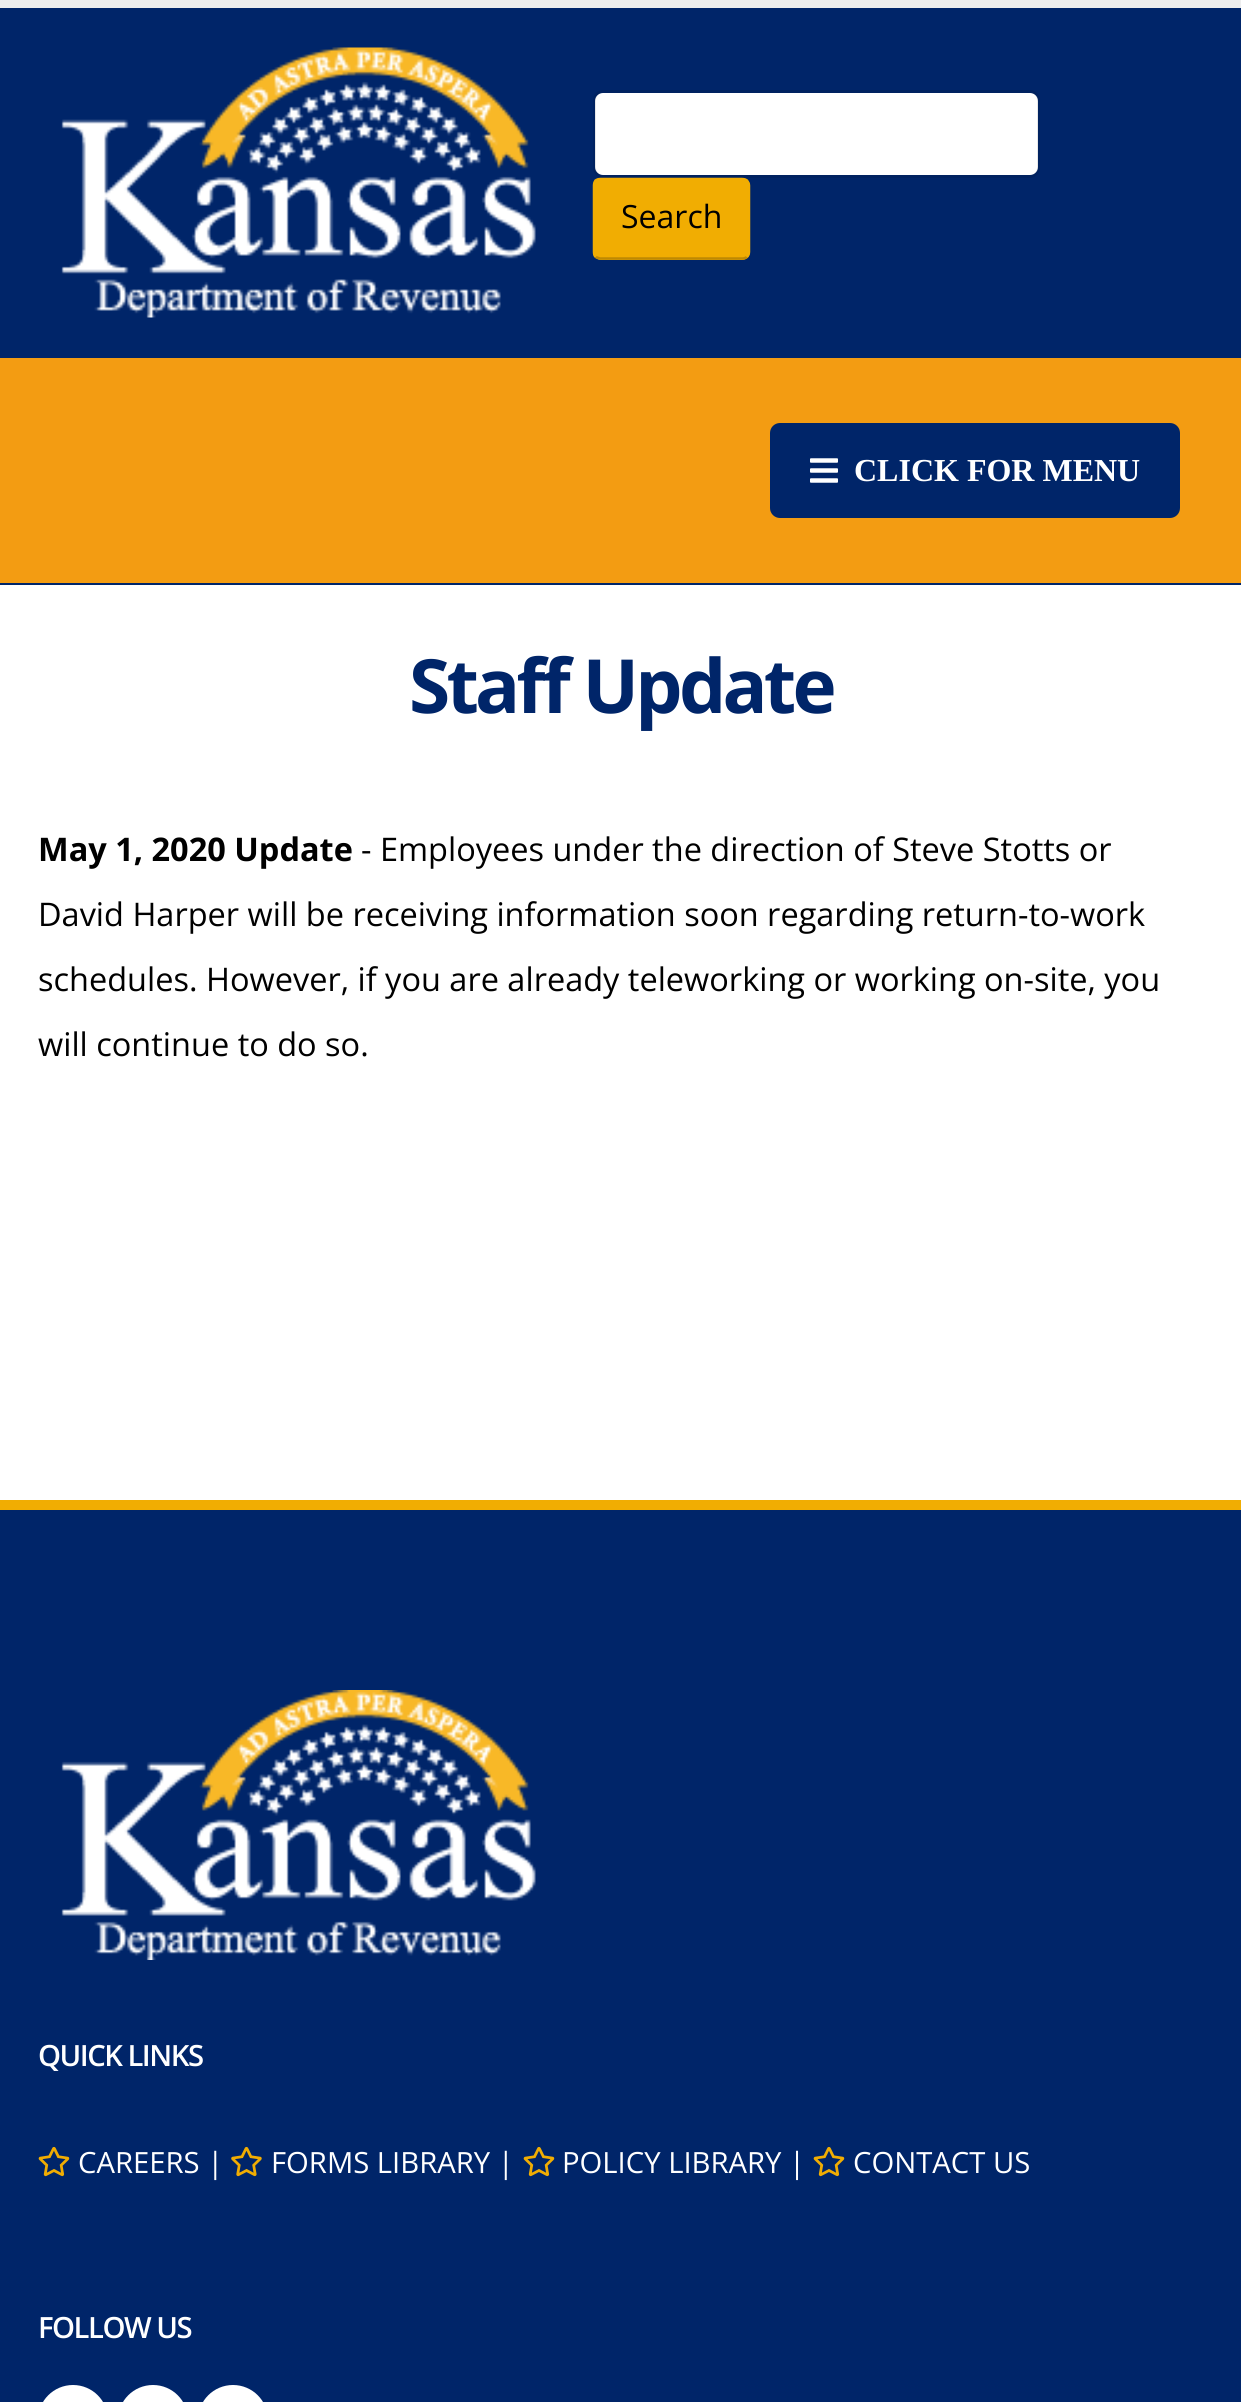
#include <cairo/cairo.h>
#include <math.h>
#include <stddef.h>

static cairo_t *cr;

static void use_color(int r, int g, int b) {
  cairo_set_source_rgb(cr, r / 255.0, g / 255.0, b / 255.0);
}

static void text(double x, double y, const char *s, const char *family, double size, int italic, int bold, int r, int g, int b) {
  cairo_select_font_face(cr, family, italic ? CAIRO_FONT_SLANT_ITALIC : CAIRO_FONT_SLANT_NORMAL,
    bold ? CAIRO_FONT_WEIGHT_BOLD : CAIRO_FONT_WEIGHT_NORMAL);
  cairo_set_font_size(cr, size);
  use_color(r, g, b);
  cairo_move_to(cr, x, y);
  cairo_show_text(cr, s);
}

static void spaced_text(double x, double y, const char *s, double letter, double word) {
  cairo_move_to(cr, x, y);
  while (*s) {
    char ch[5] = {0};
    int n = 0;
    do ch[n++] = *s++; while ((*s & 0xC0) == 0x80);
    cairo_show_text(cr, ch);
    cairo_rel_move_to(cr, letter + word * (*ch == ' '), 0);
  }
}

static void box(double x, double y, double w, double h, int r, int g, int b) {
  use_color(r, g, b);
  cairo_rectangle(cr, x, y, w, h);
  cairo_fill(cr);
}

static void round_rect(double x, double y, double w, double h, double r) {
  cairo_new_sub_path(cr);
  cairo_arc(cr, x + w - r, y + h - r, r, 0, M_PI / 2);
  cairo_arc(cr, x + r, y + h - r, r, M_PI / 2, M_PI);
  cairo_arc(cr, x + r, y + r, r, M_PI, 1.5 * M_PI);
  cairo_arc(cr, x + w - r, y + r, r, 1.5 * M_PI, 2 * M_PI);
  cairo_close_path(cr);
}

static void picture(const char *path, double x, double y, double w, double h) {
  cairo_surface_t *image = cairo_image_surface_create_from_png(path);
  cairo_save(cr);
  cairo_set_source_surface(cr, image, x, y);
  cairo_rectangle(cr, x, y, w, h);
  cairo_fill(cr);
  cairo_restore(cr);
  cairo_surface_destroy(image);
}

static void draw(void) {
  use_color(255, 255, 255);
  cairo_paint(cr);
  box(0, 8, 1241, 577, 0, 37, 105);
  box(0, 0, 1241, 8, 237, 237, 237);
  picture("img_01.png", 61, 47, 475, 271);
  use_color(255, 255, 255);
  round_rect(595, 93, 443, 82, 8);
  cairo_fill(cr);
  round_rect(594.5, 91.5, 444, 85, 8.5);
  cairo_set_source_rgba(cr, 0, 0, 0, 0.09);
  cairo_set_line_width(cr, 3);
  cairo_stroke(cr);
  use_color(241, 173, 2);
  round_rect(593, 178, 157, 82, 8);
  cairo_fill(cr);
  cairo_new_path(cr);
  cairo_move_to(cr, 747, 257);
  cairo_curve_to(cr, 745.5, 258, 744, 258.5, 742.5, 258.5);
  cairo_line_to(cr, 600, 258.5);
  cairo_line_to(cr, 595.5, 257);
  use_color(190, 137, 2);
  cairo_set_line_width(cr, 2.5);
  cairo_stroke(cr);
  cairo_new_path(cr);
  cairo_move_to(cr, 595.5, 257);
  cairo_curve_to(cr, 594.5, 255.5, 594, 254, 594, 252);
  cairo_line_to(cr, 594, 185.5);
  cairo_curve_to(cr, 594, 183.5, 594.5, 182, 595.5, 180.5);
  cairo_curve_to(cr, 597, 179.5, 598.5, 179, 600.5, 179);
  cairo_line_to(cr, 742, 179);
  cairo_curve_to(cr, 744, 179, 745.5, 179.5, 747, 180.5);
  cairo_curve_to(cr, 748, 182, 749, 183.5, 749, 185.5);
  cairo_line_to(cr, 749, 252);
  cairo_curve_to(cr, 749, 254, 748, 255.5, 747, 257);
  use_color(241, 173, 2);
  cairo_stroke(cr);
  box(0, 358, 1241, 225, 243, 156, 18);
  use_color(0, 37, 105);
  round_rect(770, 423, 410, 95, 10);
  cairo_fill(cr);
  picture("img_02.png", 810, 458, 28, 25);
  box(0, 1510, 1241, 892, 0, 37, 105);
  box(0, 1500, 1241, 10, 241, 173, 2);
  picture("img_03.png", 61, 1690, 475, 270);
  picture("img_04.png", 38, 2147, 32, 30);
  picture("img_05.png", 231, 2146, 31, 31);
  picture("img_04.png", 523, 2147, 32, 30);
  picture("img_04.png", 813, 2147, 32, 30);
  use_color(255, 255, 255);
  round_rect(38, 2385, 70, 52, 35);
  cairo_fill(cr);
  round_rect(118, 2385, 70, 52, 35);
  cairo_fill(cr);
  round_rect(198, 2385, 70, 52, 35);
  cairo_fill(cr);
  text(621, 228, "Search", "Open Sans", 32, 0, 0, 0, 0, 0);
  text(854, 481, "CLICK FOR MENU", "Liberation Serif", 32, 0, 1, 255, 255, 255);
  cairo_select_font_face(cr, "Open Sans", CAIRO_FONT_SLANT_NORMAL, CAIRO_FONT_WEIGHT_BOLD);
  cairo_set_font_size(cr, 74.75);
  use_color(0, 37, 105);
  spaced_text(409, 713, "Staff Update", -3.75, 0);
  text(38, 861, "May 1, 2020 Update", "Open Sans", 32.5, 0, 1, 0, 0, 0);
  text(361, 861, "- Employees under the direction of Steve Stotts or", "Open Sans", 32.5, 0, 0, 0, 0, 0);
  text(38, 926, "David Harper will be receiving information soon regarding return-to-work", "Open Sans", 32.5, 0, 0, 0, 0, 0);
  text(38, 991, "schedules. However, if you are already teleworking or working on-site, you", "Open Sans", 32.5, 0, 0, 0, 0, 0);
  text(38, 1056, "will continue to do so.", "Open Sans", 32.5, 0, 0, 0, 0, 0);
  cairo_select_font_face(cr, "Open Sans SemiBold", CAIRO_FONT_SLANT_NORMAL, CAIRO_FONT_WEIGHT_NORMAL);
  cairo_set_font_size(cr, 29.25);
  use_color(255, 255, 255);
  spaced_text(38, 2066, "QUICK LINKS", -1.5, 0);
  text(78, 2173, "CAREERS |", "Open Sans", 29.25, 0, 0, 255, 255, 255);
  text(271, 2173, "FORMS LIBRARY |", "Open Sans", 29.25, 0, 0, 255, 255, 255);
  text(562, 2173, "POLICY LIBRARY |", "Open Sans", 29.25, 0, 0, 255, 255, 255);
  text(853, 2173, "CONTACT US", "Open Sans", 29.25, 0, 0, 255, 255, 255);
  cairo_select_font_face(cr, "Open Sans SemiBold", CAIRO_FONT_SLANT_NORMAL, CAIRO_FONT_WEIGHT_NORMAL);
  spaced_text(38, 2338, "FOLLOW US", -1.5, 0);
}

int main(void) {
  cairo_surface_t *surface = cairo_image_surface_create(CAIRO_FORMAT_RGB24, 1241, 2402);
  cr = cairo_create(surface);
  cairo_font_options_t *options = cairo_font_options_create();
  cairo_font_options_set_hint_metrics(options, CAIRO_HINT_METRICS_OFF);
  cairo_font_options_set_hint_style(options, CAIRO_HINT_STYLE_NONE);
  cairo_set_font_options(cr, options);
  cairo_set_miter_limit(cr, 4);
  draw();
  cairo_surface_write_to_png(surface, "out.png");
  cairo_font_options_destroy(options);
  cairo_destroy(cr);
  cairo_surface_destroy(surface);
  return 0;
}
